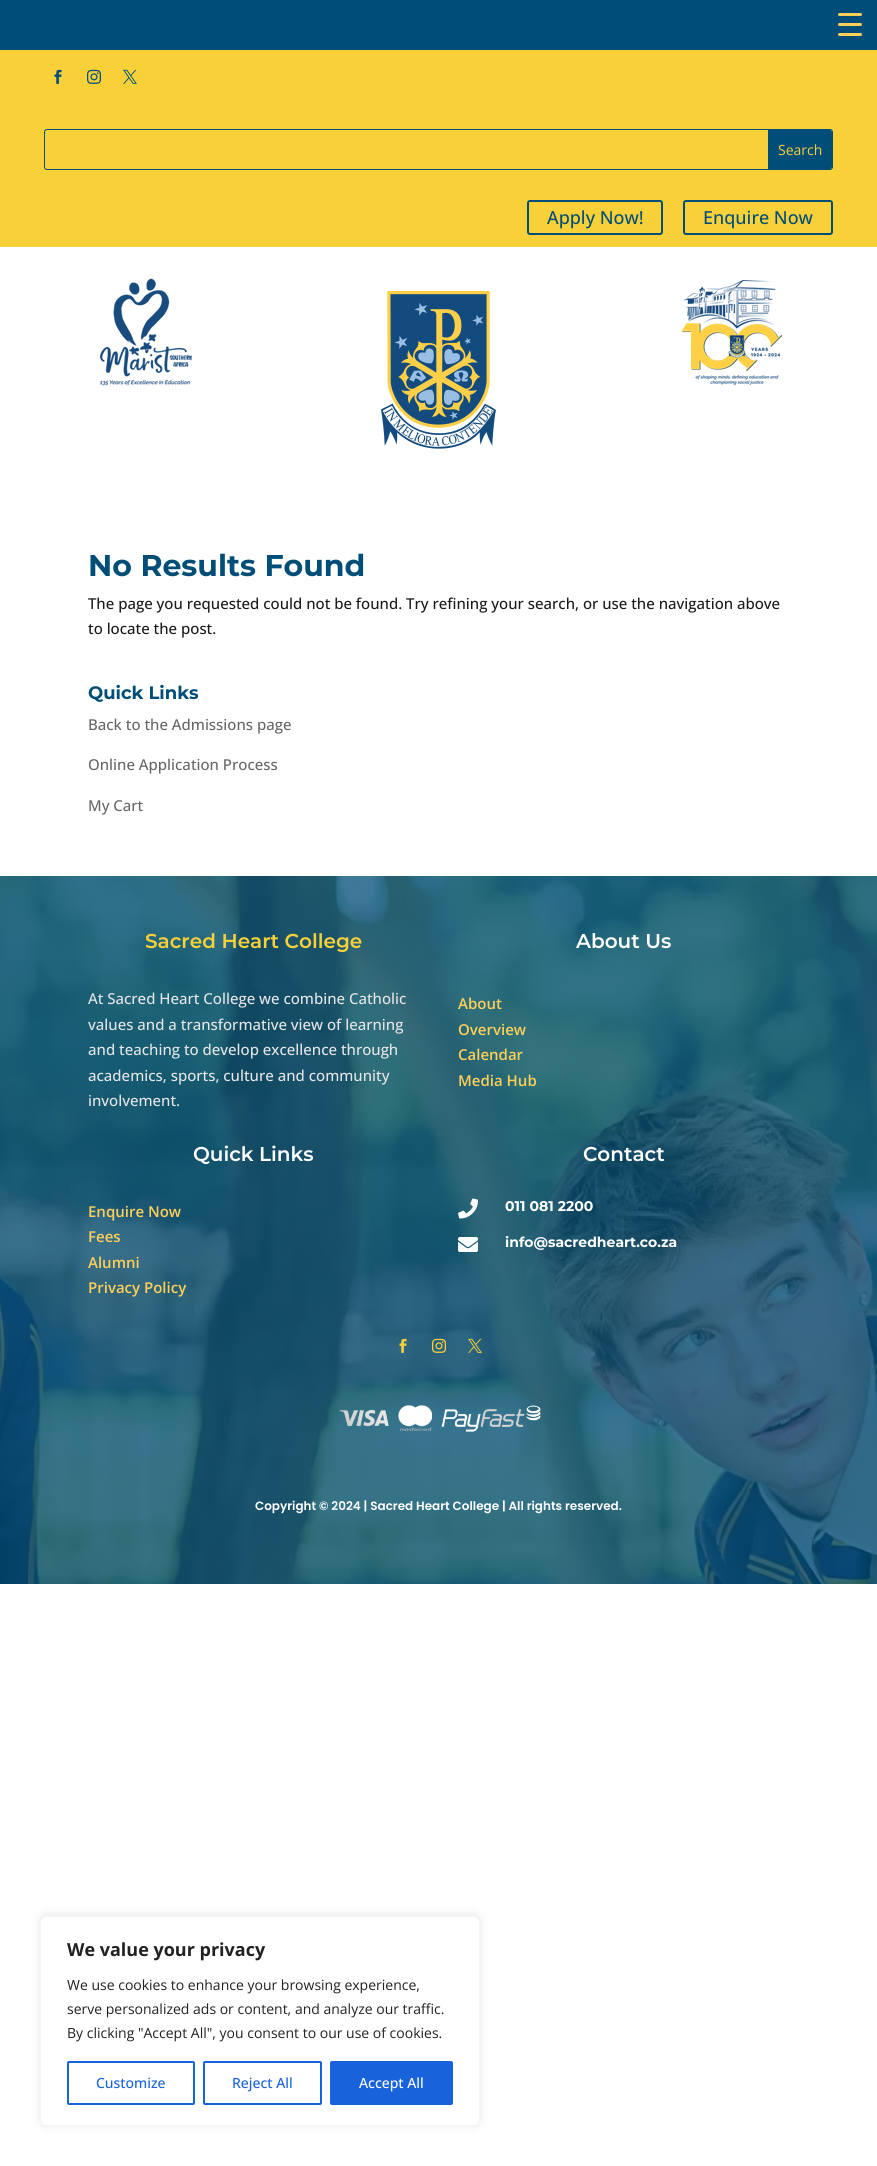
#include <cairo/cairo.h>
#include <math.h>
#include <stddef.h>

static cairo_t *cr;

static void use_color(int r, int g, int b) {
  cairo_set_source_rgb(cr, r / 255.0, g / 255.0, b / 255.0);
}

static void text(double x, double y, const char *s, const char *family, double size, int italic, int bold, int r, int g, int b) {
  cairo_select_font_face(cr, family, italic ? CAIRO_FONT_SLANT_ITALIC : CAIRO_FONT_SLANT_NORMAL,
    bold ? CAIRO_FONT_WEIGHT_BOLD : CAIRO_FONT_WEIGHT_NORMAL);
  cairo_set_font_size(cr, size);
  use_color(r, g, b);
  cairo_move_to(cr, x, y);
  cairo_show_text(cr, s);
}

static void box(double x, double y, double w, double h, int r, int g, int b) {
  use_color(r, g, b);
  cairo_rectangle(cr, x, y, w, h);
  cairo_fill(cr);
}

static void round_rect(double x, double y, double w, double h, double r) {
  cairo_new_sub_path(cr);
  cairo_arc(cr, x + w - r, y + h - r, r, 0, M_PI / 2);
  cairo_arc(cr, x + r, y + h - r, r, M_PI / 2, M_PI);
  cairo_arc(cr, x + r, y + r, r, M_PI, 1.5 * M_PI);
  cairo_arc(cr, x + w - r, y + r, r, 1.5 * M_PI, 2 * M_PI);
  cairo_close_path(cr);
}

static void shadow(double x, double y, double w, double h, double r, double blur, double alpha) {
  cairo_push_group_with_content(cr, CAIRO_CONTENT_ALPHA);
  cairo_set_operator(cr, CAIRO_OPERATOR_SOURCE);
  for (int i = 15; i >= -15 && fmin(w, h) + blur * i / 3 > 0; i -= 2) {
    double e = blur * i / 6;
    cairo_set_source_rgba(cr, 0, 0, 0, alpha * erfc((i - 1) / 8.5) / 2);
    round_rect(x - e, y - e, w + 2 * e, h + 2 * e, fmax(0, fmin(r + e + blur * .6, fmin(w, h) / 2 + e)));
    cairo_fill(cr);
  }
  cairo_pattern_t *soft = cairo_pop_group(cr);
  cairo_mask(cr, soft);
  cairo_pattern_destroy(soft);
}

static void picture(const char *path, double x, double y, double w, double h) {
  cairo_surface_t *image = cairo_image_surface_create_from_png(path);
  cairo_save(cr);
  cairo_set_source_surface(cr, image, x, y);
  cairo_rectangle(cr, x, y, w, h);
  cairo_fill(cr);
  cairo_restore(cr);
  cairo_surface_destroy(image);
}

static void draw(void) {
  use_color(255, 255, 255);
  cairo_paint(cr);
  box(0, 0, 877, 50, 0, 77, 121);
  use_color(255, 207, 89);
  round_rect(838, 23, 24, 3, 1.5);
  cairo_fill(cr);
  round_rect(838, 13, 24, 3, 1.5);
  cairo_fill(cr);
  round_rect(838, 33, 24, 3, 1.5);
  cairo_fill(cr);
  box(0, 50, 877, 197, 248, 209, 57);
  picture("img_01.png", 54, 69, 8, 15);
  picture("img_02.png", 87, 69, 14, 15);
  picture("img_03.png", 123, 69, 14, 15);
  round_rect(44.5, 129.5, 788, 40, 2.5);
  use_color(0, 77, 121);
  cairo_set_line_width(cr, 1);
  cairo_stroke(cr);
  use_color(0, 78, 119);
  cairo_new_path(cr);
  cairo_move_to(cr, 768, 130);
  cairo_line_to(cr, 830, 130);
  cairo_curve_to(cr, 831, 130, 832, 131, 832, 132);
  cairo_line_to(cr, 832, 167);
  cairo_curve_to(cr, 832, 168, 831, 169, 830, 169);
  cairo_line_to(cr, 768, 169);
  cairo_close_path(cr);
  cairo_fill(cr);
  round_rect(528, 201, 134, 33, 2);
  use_color(0, 77, 121);
  cairo_set_line_width(cr, 2);
  cairo_stroke(cr);
  round_rect(684, 201, 148, 33, 2);
  use_color(0, 78, 119);
  cairo_stroke(cr);
  picture("img_04.png", 100, 278, 92, 108);
  picture("img_05.png", 381, 291, 115, 158);
  picture("img_06.png", 681, 280, 101, 105);
  picture("img_07.png", 0, 876, 877, 708);
  picture("img_08.png", 458, 1198, 20, 21);
  picture("img_09.png", 458, 1237, 20, 15);
  picture("img_10.png", 399, 1338, 8, 15);
  picture("img_11.png", 432, 1338, 14, 15);
  picture("img_12.png", 468, 1338, 14, 15);
  picture("img_13.png", 339, 1405, 202, 27);
  use_color(172, 171, 171);
  shadow(40, 1915, 440, 210, 6, 5, 0.3);
  use_color(255, 255, 255);
  round_rect(40.5, 1916.5, 439, 209, 5.5);
  cairo_fill_preserve(cr);
  use_color(244, 244, 244);
  cairo_set_line_width(cr, 1);
  cairo_stroke(cr);
  round_rect(68, 2062, 126, 42, 1);
  use_color(24, 99, 220);
  cairo_set_line_width(cr, 2);
  cairo_stroke(cr);
  round_rect(204, 2062, 117, 42, 1);
  cairo_stroke(cr);
  round_rect(331, 2062, 121, 42, 1);
  cairo_fill_preserve(cr);
  cairo_stroke(cr);
  text(778, 155, "Search", "Open Sans", 14, 0, 0, 248, 209, 57);
  text(547, 224, "Apply Now!", "Open Sans Medium", 18, 0, 0, 0, 78, 119);
  text(703, 224, "Enquire Now", "Open Sans Medium", 18, 0, 0, 0, 78, 119);
  text(88, 576, "No Results Found", "Montserrat", 30, 0, 1, 0, 78, 119);
  text(88, 609, "The page you requested could not be found. Try refining your search, or use the navigation above", "Open Sans Medium", 15, 0, 0, 26, 26, 26);
  text(88, 634, "to locate the post.", "Open Sans Medium", 15, 0, 0, 26, 26, 26);
  text(88, 699, "Quick Links", "Montserrat", 18, 0, 1, 0, 78, 119);
  text(88, 730, "Back to the Admissions page", "Open Sans Medium", 15, 0, 0, 102, 102, 102);
  text(88, 770, "Online Application Process", "Open Sans Medium", 15, 0, 0, 102, 102, 102);
  text(88, 811, "My Cart", "Open Sans Medium", 15, 0, 0, 102, 102, 102);
  text(145, 948, "Sacred Heart College", "Montserrat SemiBold", 20, 0, 0, 248, 209, 57);
  text(88, 1004, "At Sacred Heart College we combine Catholic", "Open Sans Medium", 15, 0, 0, 230, 230, 230);
  text(88, 1030, "values and a transformative view of learning", "Open Sans Medium", 15, 0, 0, 230, 230, 230);
  text(88, 1055, "and teaching to develop excellence through", "Open Sans Medium", 15, 0, 0, 230, 230, 230);
  text(88, 1081, "academics, sports, culture and community", "Open Sans Medium", 15, 0, 0, 230, 230, 230);
  text(88, 1106, "involvement.", "Open Sans Medium", 15, 0, 0, 230, 230, 230);
  text(576, 948, "About Us", "Montserrat SemiBold", 20, 0, 0, 255, 255, 255);
  text(458, 1009, "About", "Open Sans SemiBold", 15, 0, 0, 255, 207, 89);
  text(458, 1035, "Overview", "Open Sans SemiBold", 15, 0, 0, 255, 207, 89);
  text(458, 1060, "Calendar", "Open Sans SemiBold", 15, 0, 0, 255, 207, 89);
  text(458, 1086, "Media Hub", "Open Sans SemiBold", 15, 0, 0, 255, 207, 89);
  text(193, 1161, "Quick Links", "Montserrat SemiBold", 20, 0, 0, 255, 255, 255);
  text(88, 1217, "Enquire Now", "Open Sans SemiBold", 15, 0, 0, 255, 207, 89);
  text(88, 1242, "Fees", "Open Sans SemiBold", 15, 0, 0, 255, 207, 89);
  text(88, 1268, "Alumni", "Open Sans SemiBold", 15, 0, 0, 255, 207, 89);
  text(88, 1293, "Privacy Policy", "Open Sans SemiBold", 15, 0, 0, 255, 207, 89);
  text(583, 1161, "Contact", "Montserrat SemiBold", 20, 0, 0, 255, 255, 255);
  text(505, 1211, "011 081 2200", "Montserrat", 14, 0, 1, 255, 255, 255);
  text(505, 1247, "info@sacredheart.co.za", "Montserrat", 14, 0, 1, 255, 255, 255);
  text(255, 1510, "Copyright © 2024 | Sacred Heart College | All rights reserved.", "Poppins SemiBold", 12, 0, 0, 255, 255, 255);
  text(67, 1956, "We value your privacy", "Open Sans", 18, 0, 1, 33, 33, 33);
  text(67, 1990, "We use cookies to enhance your browsing experience,", "Open Sans", 14, 0, 0, 33, 33, 33);
  text(67, 2014, "serve personalized ads or content, and analyze our traffic.", "Open Sans", 14, 0, 0, 33, 33, 33);
  text(67, 2038, "By clicking \"Accept All\", you consent to our use of cookies.", "Open Sans", 14, 0, 0, 33, 33, 33);
  text(96, 2088, "Customize", "Open Sans Medium", 14, 0, 0, 24, 99, 220);
  text(232, 2088, "Reject All", "Open Sans Medium", 14, 0, 0, 24, 99, 220);
  text(359, 2088, "Accept All", "Open Sans Medium", 14, 0, 0, 255, 255, 255);
}

int main(void) {
  cairo_surface_t *surface = cairo_image_surface_create(CAIRO_FORMAT_RGB24, 877, 2166);
  cr = cairo_create(surface);
  cairo_font_options_t *options = cairo_font_options_create();
  cairo_font_options_set_hint_metrics(options, CAIRO_HINT_METRICS_OFF);
  cairo_font_options_set_hint_style(options, CAIRO_HINT_STYLE_NONE);
  cairo_set_font_options(cr, options);
  cairo_set_miter_limit(cr, 4);
  draw();
  cairo_surface_write_to_png(surface, "out.png");
  cairo_font_options_destroy(options);
  cairo_destroy(cr);
  cairo_surface_destroy(surface);
  return 0;
}
